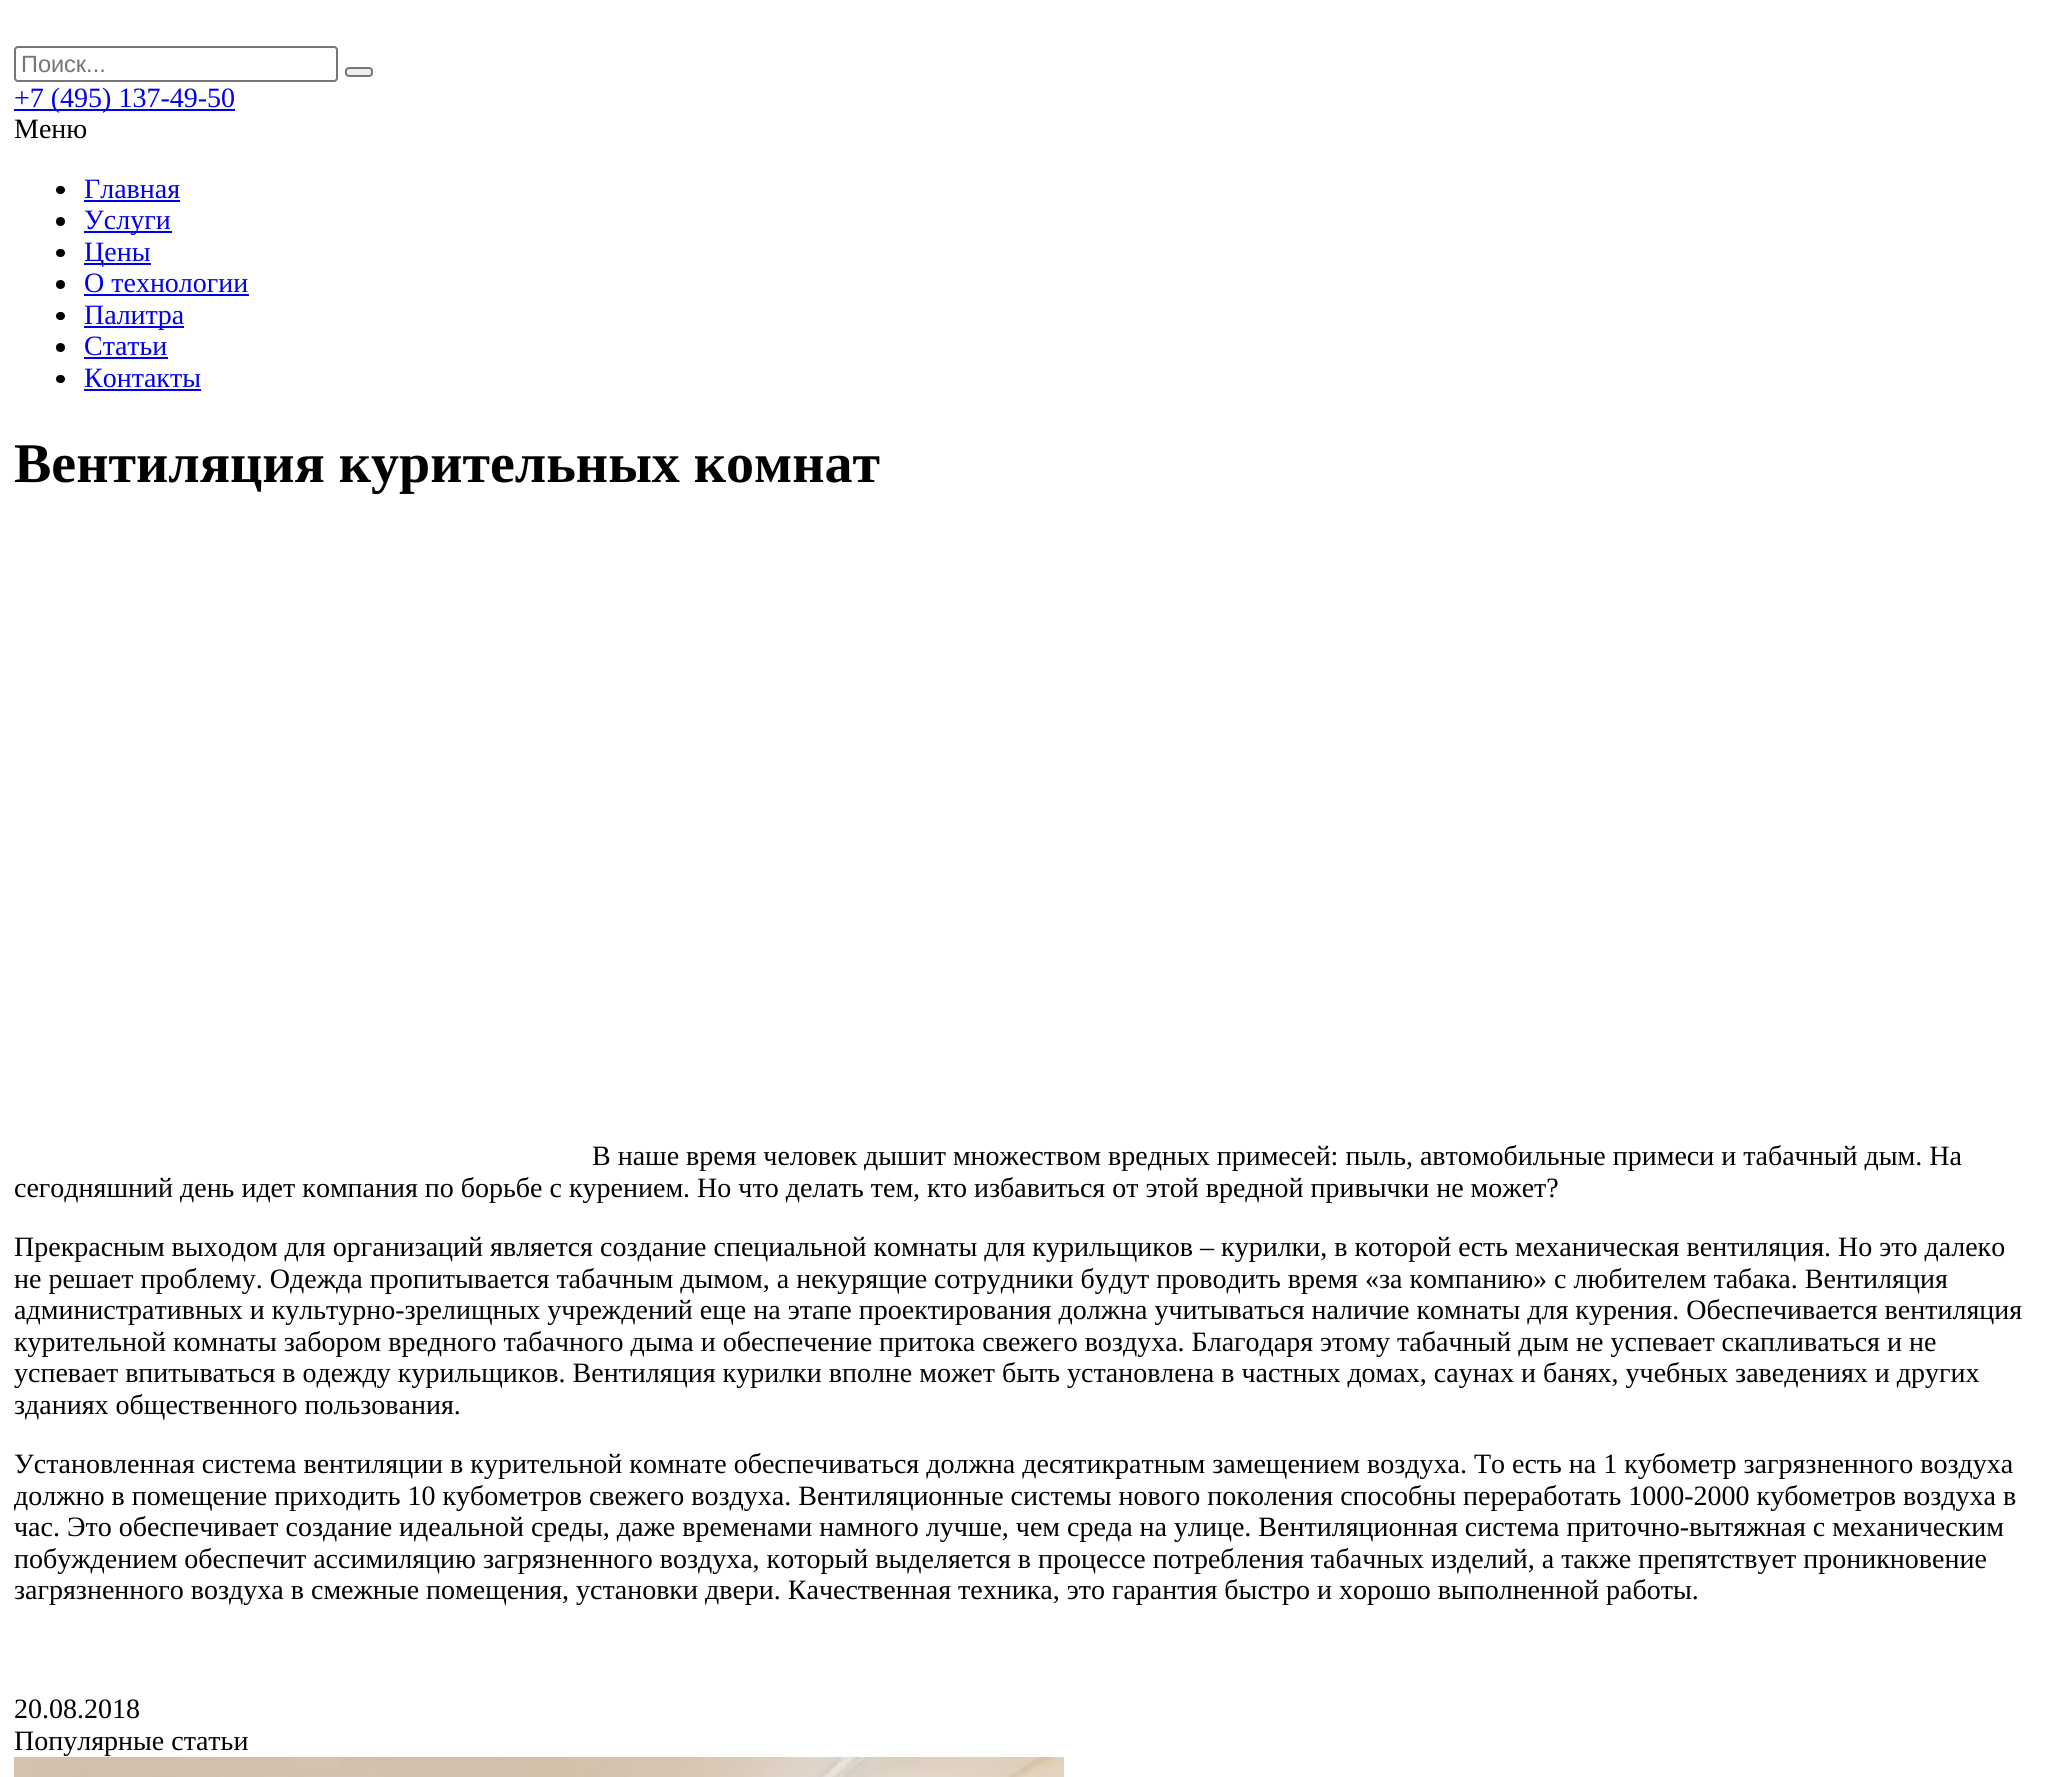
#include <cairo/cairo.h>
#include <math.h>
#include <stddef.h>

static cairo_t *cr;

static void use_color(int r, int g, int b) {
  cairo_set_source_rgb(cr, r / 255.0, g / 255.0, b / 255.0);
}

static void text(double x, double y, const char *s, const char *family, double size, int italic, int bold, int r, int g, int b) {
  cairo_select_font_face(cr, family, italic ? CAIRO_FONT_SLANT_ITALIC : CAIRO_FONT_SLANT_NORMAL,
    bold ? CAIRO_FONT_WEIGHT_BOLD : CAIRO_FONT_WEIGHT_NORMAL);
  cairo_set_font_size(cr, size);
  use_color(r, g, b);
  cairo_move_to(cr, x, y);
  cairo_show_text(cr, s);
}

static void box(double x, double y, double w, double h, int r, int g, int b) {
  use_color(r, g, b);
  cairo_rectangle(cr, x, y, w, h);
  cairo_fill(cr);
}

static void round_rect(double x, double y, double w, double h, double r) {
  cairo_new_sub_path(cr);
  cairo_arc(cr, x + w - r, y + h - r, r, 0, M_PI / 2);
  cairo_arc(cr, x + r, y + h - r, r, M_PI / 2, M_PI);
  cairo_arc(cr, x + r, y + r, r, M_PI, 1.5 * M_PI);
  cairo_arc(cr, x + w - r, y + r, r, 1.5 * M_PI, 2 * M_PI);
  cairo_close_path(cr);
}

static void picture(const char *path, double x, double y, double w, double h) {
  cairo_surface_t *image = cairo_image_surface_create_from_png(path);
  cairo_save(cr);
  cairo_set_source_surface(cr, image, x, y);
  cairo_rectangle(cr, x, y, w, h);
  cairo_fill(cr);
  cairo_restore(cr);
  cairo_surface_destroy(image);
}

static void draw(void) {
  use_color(255, 255, 255);
  cairo_paint(cr);
  round_rect(15, 47, 322, 34, 3);
  use_color(118, 118, 118);
  cairo_stroke(cr);
  use_color(239, 239, 239);
  round_rect(346, 68, 26, 8, 3);
  cairo_fill_preserve(cr);
  use_color(118, 118, 118);
  cairo_stroke(cr);
  box(14, 109, 221, 2, 0, 0, 238);
  use_color(0, 0, 0);
  round_rect(56, 186, 9, 8, 4);
  cairo_fill(cr);
  box(84, 200, 96, 2, 0, 0, 238);
  use_color(0, 0, 0);
  cairo_arc(cr, 60.5, 221.5, 4.5, 0, 2 * M_PI);
  cairo_fill(cr);
  box(84, 231, 88, 2, 0, 0, 238);
  use_color(0, 0, 0);
  round_rect(56, 249, 9, 8, 4);
  cairo_fill(cr);
  box(84, 263, 67, 2, 0, 0, 238);
  use_color(0, 0, 0);
  cairo_arc(cr, 60.5, 284.5, 4.5, 0, 2 * M_PI);
  cairo_fill(cr);
  box(84, 294, 165, 2, 0, 0, 238);
  use_color(0, 0, 0);
  round_rect(56, 312, 9, 8, 4);
  cairo_fill(cr);
  box(84, 326, 100, 2, 0, 0, 238);
  use_color(0, 0, 0);
  cairo_arc(cr, 60.5, 347.5, 4.5, 0, 2 * M_PI);
  cairo_fill(cr);
  box(84, 357, 84, 2, 0, 0, 238);
  use_color(0, 0, 0);
  round_rect(56, 375, 9, 8, 4);
  cairo_fill(cr);
  box(84, 389, 117, 2, 0, 0, 238);
  picture("img_01.png", 14, 1757, 1050, 20);
  text(21, 72, "Поиск...", "Liberation Sans", 23.5, 0, 0, 117, 117, 117);
  text(14, 107, "+7 (495) 137-49-50", "Liberation Serif", 28, 0, 0, 0, 0, 238);
  text(14, 138, "Меню", "Liberation Serif", 28, 0, 0, 0, 0, 0);
  text(84, 198, "Главная", "Liberation Serif", 28, 0, 0, 0, 0, 238);
  text(84, 229, "Услуги", "Liberation Serif", 28, 0, 0, 0, 0, 238);
  text(84, 261, "Цены", "Liberation Serif", 28, 0, 0, 0, 0, 238);
  text(84, 292, "О технологии", "Liberation Serif", 28, 0, 0, 0, 0, 238);
  text(84, 324, "Палитра", "Liberation Serif", 28, 0, 0, 0, 0, 238);
  text(84, 355, "Статьи", "Liberation Serif", 28, 0, 0, 0, 0, 238);
  text(84, 387, "Контакты", "Liberation Serif", 28, 0, 0, 0, 0, 238);
  text(14, 482, "Вентиляция курительных комнат", "Liberation Serif", 56, 0, 1, 0, 0, 0);
  text(592, 1165, "В наше время человек дышит множеством вредных примесей: пыль, автомобильные примеси и табачный дым. На", "Liberation Serif", 28, 0, 0, 0, 0, 0);
  text(14, 1197, "сегодняшний день идет компания по борьбе с курением. Но что делать тем, кто избавиться от этой вредной привычки не может?", "Liberation Serif", 28, 0, 0, 0, 0, 0);
  text(14, 1256, "Прекрасным выходом для организаций является создание специальной комнаты для курильщиков – курилки, в которой есть механическая вентиляция. Но это далеко", "Liberation Serif", 28, 0, 0, 0, 0, 0);
  text(14, 1288, "не решает проблему. Одежда пропитывается табачным дымом, а некурящие сотрудники будут проводить время «за компанию» с любителем табака. Вентиляция", "Liberation Serif", 28, 0, 0, 0, 0, 0);
  text(14, 1319, "административных и культурно-зрелищных учреждений еще на этапе проектирования должна учитываться наличие комнаты для курения. Обеспечивается вентиляция", "Liberation Serif", 28, 0, 0, 0, 0, 0);
  text(14, 1351, "курительной комнаты забором вредного табачного дыма и обеспечение притока свежего воздуха. Благодаря этому табачный дым не успевает скапливаться и не", "Liberation Serif", 28, 0, 0, 0, 0, 0);
  text(14, 1382, "успевает впитываться в одежду курильщиков. Вентиляция курилки вполне может быть установлена в частных домах, саунах и банях, учебных заведениях и других", "Liberation Serif", 28, 0, 0, 0, 0, 0);
  text(14, 1414, "зданиях общественного пользования.", "Liberation Serif", 28, 0, 0, 0, 0, 0);
  text(14, 1473, "Установленная система вентиляции в курительной комнате обеспечиваться должна десятикратным замещением воздуха. То есть на 1 кубометр загрязненного воздуха", "Liberation Serif", 28, 0, 0, 0, 0, 0);
  text(14, 1505, "должно в помещение приходить 10 кубометров свежего воздуха. Вентиляционные системы нового поколения способны переработать 1000-2000 кубометров воздуха в", "Liberation Serif", 28, 0, 0, 0, 0, 0);
  text(14, 1536, "час. Это обеспечивает создание идеальной среды, даже временами намного лучше, чем среда на улице. Вентиляционная система приточно-вытяжная с механическим", "Liberation Serif", 28, 0, 0, 0, 0, 0);
  text(14, 1568, "побуждением обеспечит ассимиляцию загрязненного воздуха, который выделяется в процессе потребления табачных изделий, а также препятствует проникновение", "Liberation Serif", 28, 0, 0, 0, 0, 0);
  text(14, 1599, "загрязненного воздуха в смежные помещения, установки двери. Качественная техника, это гарантия быстро и хорошо выполненной работы.", "Liberation Serif", 28, 0, 0, 0, 0, 0);
  text(14, 1718, "20.08.2018", "Liberation Serif", 28, 0, 0, 0, 0, 0);
  text(14, 1750, "Популярные статьи", "Liberation Serif", 28, 0, 0, 0, 0, 0);
}

int main(void) {
  cairo_surface_t *surface = cairo_image_surface_create(CAIRO_FORMAT_RGB24, 2052, 1777);
  cr = cairo_create(surface);
  cairo_font_options_t *options = cairo_font_options_create();
  cairo_font_options_set_hint_metrics(options, CAIRO_HINT_METRICS_OFF);
  cairo_font_options_set_hint_style(options, CAIRO_HINT_STYLE_NONE);
  cairo_set_font_options(cr, options);
  cairo_set_miter_limit(cr, 4);
  draw();
  cairo_surface_write_to_png(surface, "out.png");
  cairo_font_options_destroy(options);
  cairo_destroy(cr);
  cairo_surface_destroy(surface);
  return 0;
}
